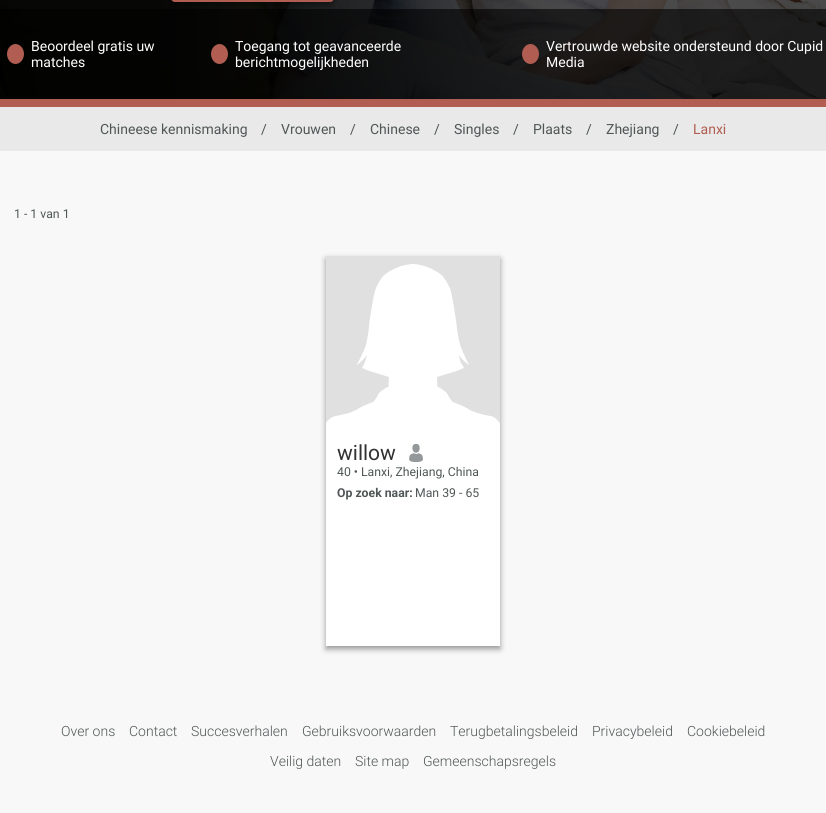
#include <cairo/cairo.h>
#include <math.h>
#include <stddef.h>

static cairo_t *cr;

static void use_color(int r, int g, int b) {
  cairo_set_source_rgb(cr, r / 255.0, g / 255.0, b / 255.0);
}

static void text(double x, double y, const char *s, const char *family, double size, int italic, int bold, int r, int g, int b) {
  cairo_select_font_face(cr, family, italic ? CAIRO_FONT_SLANT_ITALIC : CAIRO_FONT_SLANT_NORMAL,
    bold ? CAIRO_FONT_WEIGHT_BOLD : CAIRO_FONT_WEIGHT_NORMAL);
  cairo_set_font_size(cr, size);
  use_color(r, g, b);
  cairo_move_to(cr, x, y);
  cairo_show_text(cr, s);
}

static void box(double x, double y, double w, double h, int r, int g, int b) {
  use_color(r, g, b);
  cairo_rectangle(cr, x, y, w, h);
  cairo_fill(cr);
}

static void round_rect(double x, double y, double w, double h, double r) {
  cairo_new_sub_path(cr);
  cairo_arc(cr, x + w - r, y + h - r, r, 0, M_PI / 2);
  cairo_arc(cr, x + r, y + h - r, r, M_PI / 2, M_PI);
  cairo_arc(cr, x + r, y + r, r, M_PI, 1.5 * M_PI);
  cairo_arc(cr, x + w - r, y + r, r, 1.5 * M_PI, 2 * M_PI);
  cairo_close_path(cr);
}

static void shadow(double x, double y, double w, double h, double r, double blur, double alpha) {
  cairo_push_group_with_content(cr, CAIRO_CONTENT_ALPHA);
  cairo_set_operator(cr, CAIRO_OPERATOR_SOURCE);
  for (int i = 15; i >= -15 && fmin(w, h) + blur * i / 3 > 0; i -= 2) {
    double e = blur * i / 6;
    cairo_set_source_rgba(cr, 0, 0, 0, alpha * erfc((i - 1) / 8.5) / 2);
    round_rect(x - e, y - e, w + 2 * e, h + 2 * e, fmax(0, fmin(r + e + blur * .6, fmin(w, h) / 2 + e)));
    cairo_fill(cr);
  }
  cairo_pattern_t *soft = cairo_pop_group(cr);
  cairo_mask(cr, soft);
  cairo_pattern_destroy(soft);
}

static void picture(const char *path, double x, double y, double w, double h) {
  cairo_surface_t *image = cairo_image_surface_create_from_png(path);
  cairo_save(cr);
  cairo_set_source_surface(cr, image, x, y);
  cairo_rectangle(cr, x, y, w, h);
  cairo_fill(cr);
  cairo_restore(cr);
  cairo_surface_destroy(image);
}

static void draw(void) {
  use_color(248, 248, 248);
  cairo_paint(cr);
  picture("img_01.png", 0, 0, 826, 99);
  use_color(0, 0, 0);
  shadow(171, -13, 163, 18, 4, 3, 0.4);
  use_color(177, 93, 81);
  round_rect(171, -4, 163, 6, 4);
  cairo_fill(cr);
  cairo_new_path(cr);
  cairo_move_to(cr, 15.5, 44);
  cairo_curve_to(cr, 20, 44, 24, 48.5, 24, 54);
  cairo_curve_to(cr, 24, 59.5, 20, 64, 15.5, 64);
  cairo_curve_to(cr, 11, 64, 7, 59.5, 7, 54);
  cairo_curve_to(cr, 7, 48.5, 11, 44, 15.5, 44);
  cairo_close_path(cr);
  cairo_fill(cr);
  cairo_new_path(cr);
  cairo_move_to(cr, 219.5, 44);
  cairo_curve_to(cr, 224, 44, 228, 48.5, 228, 54);
  cairo_curve_to(cr, 228, 59.5, 224, 64, 219.5, 64);
  cairo_curve_to(cr, 215, 64, 211, 59.5, 211, 54);
  cairo_curve_to(cr, 211, 48.5, 215, 44, 219.5, 44);
  cairo_close_path(cr);
  cairo_fill(cr);
  cairo_new_path(cr);
  cairo_move_to(cr, 530.5, 44);
  cairo_curve_to(cr, 535, 44, 539, 48.5, 539, 54);
  cairo_curve_to(cr, 539, 59.5, 535, 64, 530.5, 64);
  cairo_curve_to(cr, 526, 64, 522, 59.5, 522, 54);
  cairo_curve_to(cr, 522, 48.5, 526, 44, 530.5, 44);
  cairo_close_path(cr);
  cairo_fill(cr);
  box(0, 99, 826, 8, 177, 93, 81);
  box(0, 107, 826, 44, 233, 233, 233);
  use_color(0, 0, 0);
  shadow(326, 259, 174, 390, 0, 3, 0.4);
  box(326, 430, 174, 216, 255, 255, 255);
  box(326, 256, 174, 167, 224, 224, 224);
  picture("img_02.png", 326, 264, 174, 166);
  picture("img_03.png", 409, 444, 14, 18);
  text(31, 51, "Beoordeel gratis uw", "Roboto", 14, 0, 0, 255, 255, 255);
  text(31, 67, "matches", "Roboto", 14, 0, 0, 255, 255, 255);
  text(235, 51, "Toegang tot geavanceerde", "Roboto", 14, 0, 0, 255, 255, 255);
  text(235, 67, "berichtmogelijkheden", "Roboto", 14, 0, 0, 255, 255, 255);
  text(546, 51, "Vertrouwde website ondersteund door Cupid", "Roboto", 14, 0, 0, 255, 255, 255);
  text(546, 67, "Media", "Roboto", 14, 0, 0, 255, 255, 255);
  text(100, 134, "Chineese kennismaking", "Roboto", 14, 0, 0, 80, 86, 86);
  text(261, 134, "/", "Roboto", 14, 0, 0, 80, 86, 86);
  text(281, 134, "Vrouwen", "Roboto", 14, 0, 0, 80, 86, 86);
  text(350, 134, "/", "Roboto", 14, 0, 0, 80, 86, 86);
  text(370, 134, "Chinese", "Roboto", 14, 0, 0, 80, 86, 86);
  text(434, 134, "/", "Roboto", 14, 0, 0, 80, 86, 86);
  text(454, 134, "Singles", "Roboto", 14, 0, 0, 80, 86, 86);
  text(513, 134, "/", "Roboto", 14, 0, 0, 80, 86, 86);
  text(533, 134, "Plaats", "Roboto", 14, 0, 0, 80, 86, 86);
  text(586, 134, "/", "Roboto", 14, 0, 0, 80, 86, 86);
  text(606, 134, "Zhejiang", "Roboto", 14, 0, 0, 80, 86, 86);
  text(673, 134, "/", "Roboto", 14, 0, 0, 80, 86, 86);
  text(693, 134, "Lanxi", "Roboto", 14, 0, 0, 177, 93, 81);
  text(14, 218, "1 - 1 van 1", "Roboto", 12.25, 0, 0, 80, 86, 86);
  text(337, 460, "willow", "Roboto", 21, 0, 0, 50, 50, 50);
  text(337, 476, "40 • Lanxi, Zhejiang, China", "Roboto", 12.25, 0, 0, 80, 86, 86);
  text(337, 497, "Op zoek naar:", "Roboto", 12.25, 0, 1, 80, 86, 86);
  text(415, 497, "Man 39 - 65", "Roboto", 12.25, 0, 0, 80, 86, 86);
  text(61, 736, "Over ons", "Roboto Light", 14, 0, 0, 80, 86, 86);
  text(129, 736, "Contact", "Roboto Light", 14, 0, 0, 80, 86, 86);
  text(191, 736, "Succesverhalen", "Roboto Light", 14, 0, 0, 80, 86, 86);
  text(302, 736, "Gebruiksvoorwaarden", "Roboto Light", 14, 0, 0, 80, 86, 86);
  text(450, 736, "Terugbetalingsbeleid", "Roboto Light", 14, 0, 0, 80, 86, 86);
  text(592, 736, "Privacybeleid", "Roboto Light", 14, 0, 0, 80, 86, 86);
  text(687, 736, "Cookiebeleid", "Roboto Light", 14, 0, 0, 80, 86, 86);
  text(270, 766, "Veilig daten", "Roboto Light", 14, 0, 0, 80, 86, 86);
  text(355, 766, "Site map", "Roboto Light", 14, 0, 0, 80, 86, 86);
  text(423, 766, "Gemeenschapsregels", "Roboto Light", 14, 0, 0, 80, 86, 86);
}

int main(void) {
  cairo_surface_t *surface = cairo_image_surface_create(CAIRO_FORMAT_RGB24, 826, 813);
  cr = cairo_create(surface);
  cairo_font_options_t *options = cairo_font_options_create();
  cairo_font_options_set_hint_metrics(options, CAIRO_HINT_METRICS_OFF);
  cairo_font_options_set_hint_style(options, CAIRO_HINT_STYLE_NONE);
  cairo_set_font_options(cr, options);
  cairo_set_miter_limit(cr, 4);
  draw();
  cairo_surface_write_to_png(surface, "out.png");
  cairo_font_options_destroy(options);
  cairo_destroy(cr);
  cairo_surface_destroy(surface);
  return 0;
}
